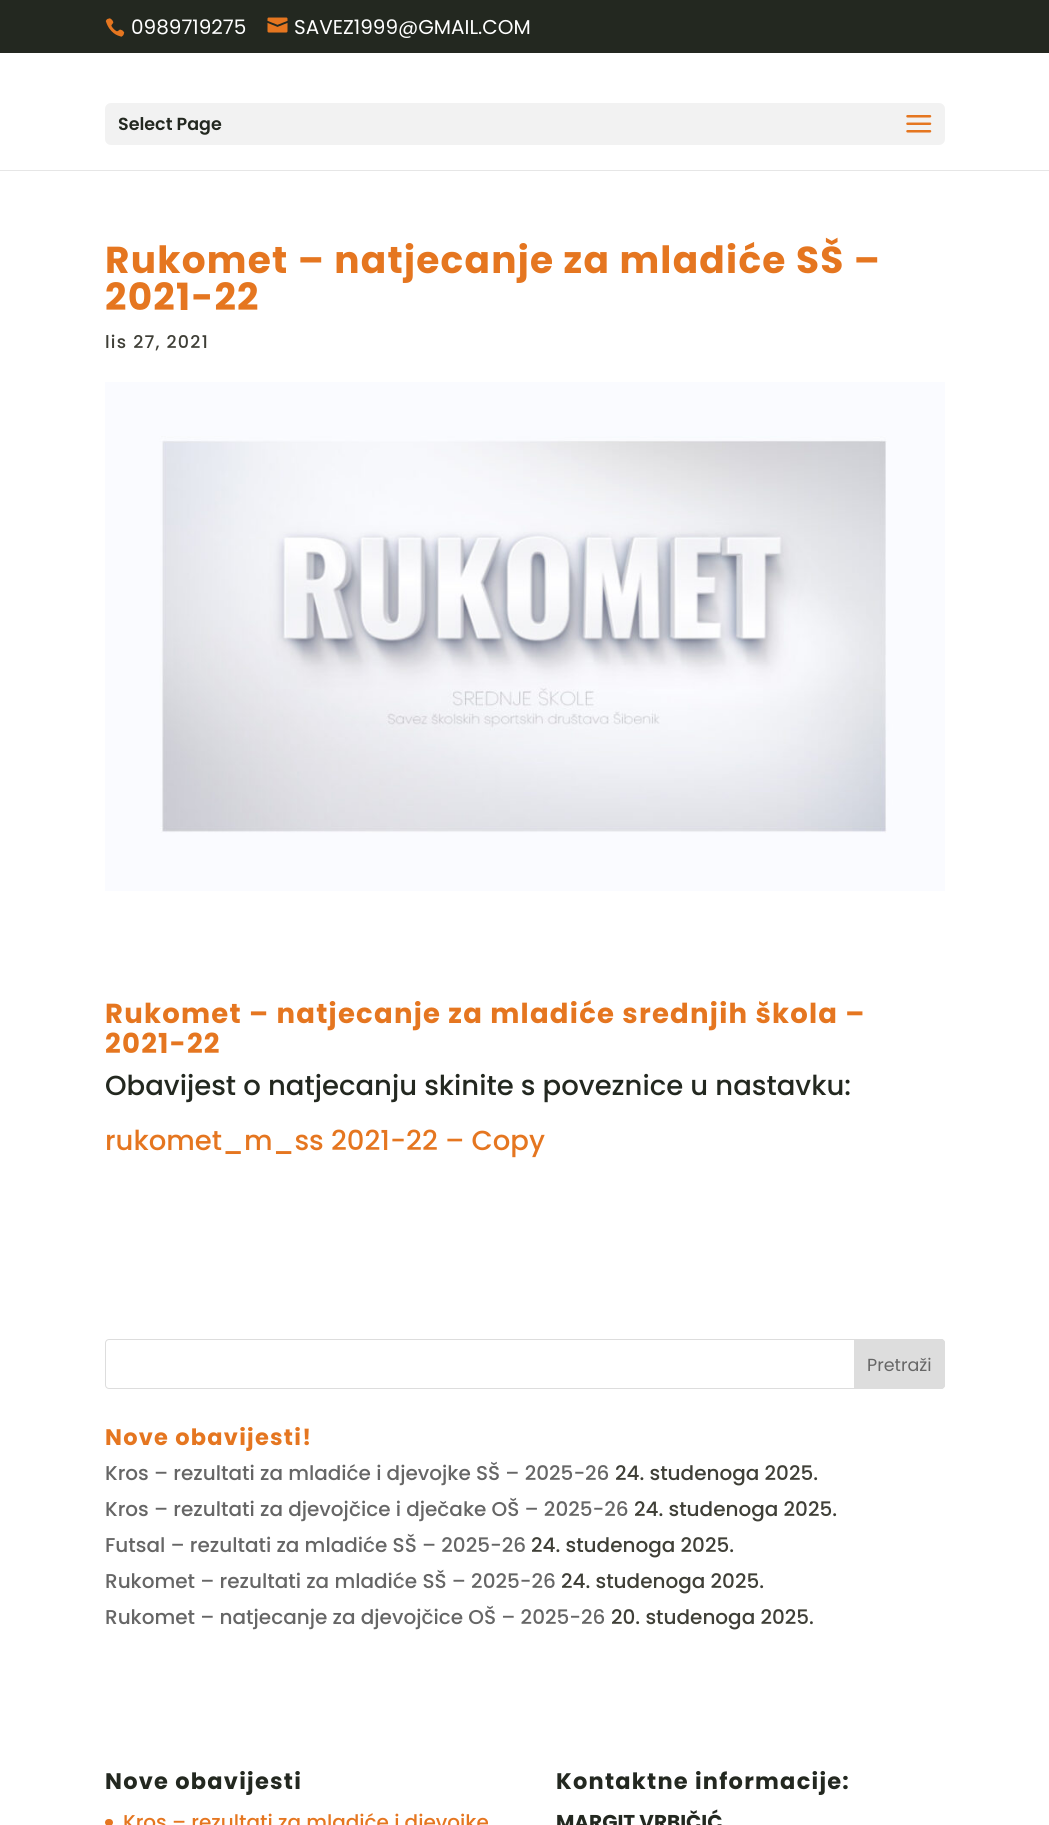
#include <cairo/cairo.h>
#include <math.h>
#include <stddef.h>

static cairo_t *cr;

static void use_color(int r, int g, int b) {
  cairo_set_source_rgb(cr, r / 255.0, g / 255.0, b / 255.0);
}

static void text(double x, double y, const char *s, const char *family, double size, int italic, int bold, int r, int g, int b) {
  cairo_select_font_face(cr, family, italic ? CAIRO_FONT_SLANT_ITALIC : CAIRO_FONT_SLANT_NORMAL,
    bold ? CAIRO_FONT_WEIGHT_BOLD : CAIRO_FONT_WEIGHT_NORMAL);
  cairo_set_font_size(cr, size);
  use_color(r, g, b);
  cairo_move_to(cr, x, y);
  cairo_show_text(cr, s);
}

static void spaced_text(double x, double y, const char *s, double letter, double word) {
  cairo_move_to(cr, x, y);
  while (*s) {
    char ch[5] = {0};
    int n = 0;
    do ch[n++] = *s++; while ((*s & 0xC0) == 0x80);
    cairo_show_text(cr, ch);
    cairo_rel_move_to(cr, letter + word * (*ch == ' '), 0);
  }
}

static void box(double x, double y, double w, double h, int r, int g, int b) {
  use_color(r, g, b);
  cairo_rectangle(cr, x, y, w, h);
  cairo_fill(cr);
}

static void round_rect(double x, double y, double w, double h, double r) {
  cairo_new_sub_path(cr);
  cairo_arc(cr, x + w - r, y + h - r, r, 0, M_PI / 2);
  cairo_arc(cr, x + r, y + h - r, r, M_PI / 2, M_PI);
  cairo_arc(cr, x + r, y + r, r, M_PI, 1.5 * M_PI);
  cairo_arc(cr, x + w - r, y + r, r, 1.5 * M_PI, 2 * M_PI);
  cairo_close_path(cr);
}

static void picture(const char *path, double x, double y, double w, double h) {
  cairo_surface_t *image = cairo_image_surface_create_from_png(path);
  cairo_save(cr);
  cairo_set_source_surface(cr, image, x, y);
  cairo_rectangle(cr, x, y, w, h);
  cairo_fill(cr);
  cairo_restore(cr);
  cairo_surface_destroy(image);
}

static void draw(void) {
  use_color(255, 255, 255);
  cairo_paint(cr);
  box(0, 0, 1049, 53, 35, 40, 32);
  picture("img_01.png", 105, 18, 20, 19);
  picture("img_02.png", 267, 17, 21, 16);
  box(0, 170, 1049, 1, 230, 230, 230);
  use_color(242, 242, 242);
  round_rect(105, 103, 840, 42, 6);
  cairo_fill(cr);
  picture("img_03.png", 906, 115, 26, 18);
  picture("img_04.png", 105, 382, 840, 509);
  round_rect(105.5, 1339.5, 839, 49, 3.5);
  use_color(221, 221, 221);
  cairo_set_line_width(cr, 1);
  cairo_stroke(cr);
  cairo_new_path(cr);
  cairo_move_to(cr, 854.5, 1339.5);
  cairo_line_to(cr, 941, 1339.5);
  cairo_curve_to(cr, 943, 1339.5, 944.5, 1341, 944.5, 1343);
  cairo_line_to(cr, 944.5, 1385);
  cairo_curve_to(cr, 944.5, 1387, 943, 1388.5, 941, 1388.5);
  cairo_line_to(cr, 854.5, 1388.5);
  cairo_close_path(cr);
  cairo_fill_preserve(cr);
  cairo_stroke(cr);
  use_color(229, 118, 32);
  round_rect(105, 1819, 8, 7, 3.5);
  cairo_fill(cr);
  text(131, 34, "0989719275", "Poppins", 20, 0, 0, 255, 255, 255);
  text(294, 34, "SAVEZ1999@GMAIL.COM", "Poppins", 20, 0, 0, 255, 255, 255);
  text(118, 130, "Select Page", "Poppins SemiBold", 17.5, 0, 0, 35, 40, 32);
  cairo_select_font_face(cr, "Poppins", CAIRO_FONT_SLANT_NORMAL, CAIRO_FONT_WEIGHT_BOLD);
  cairo_set_font_size(cr, 37.5);
  use_color(229, 118, 32);
  spaced_text(105, 273, "Rukomet – natjecanje za mladiće SŠ –", 1.25, 0);
  spaced_text(105, 310, "2021-22", 1.25, 0);
  cairo_select_font_face(cr, "Poppins Medium", CAIRO_FONT_SLANT_NORMAL, CAIRO_FONT_WEIGHT_NORMAL);
  cairo_set_font_size(cr, 17.5);
  use_color(63, 63, 55);
  spaced_text(105, 348, "lis 27, 2021", 1.25, 0);
  cairo_select_font_face(cr, "Poppins", CAIRO_FONT_SLANT_NORMAL, CAIRO_FONT_WEIGHT_BOLD);
  cairo_set_font_size(cr, 27.5);
  use_color(229, 118, 32);
  spaced_text(105, 1023, "Rukomet – natjecanje za mladiće srednjih škola –", 1.25, 0);
  spaced_text(105, 1053, "2021-22", 1.25, 0);
  text(105, 1095, "Obavijest o natjecanju skinite s poveznice u nastavku:", "Poppins Medium", 27.5, 0, 0, 35, 40, 32);
  text(105, 1150, "rukomet_m_ss 2021-22 – Copy", "Poppins Medium", 27.5, 0, 0, 229, 118, 32);
  text(867, 1371, "Pretraži", "Poppins", 17.5, 0, 0, 102, 102, 102);
  cairo_select_font_face(cr, "Poppins", CAIRO_FONT_SLANT_NORMAL, CAIRO_FONT_WEIGHT_BOLD);
  cairo_set_font_size(cr, 22.5);
  use_color(229, 118, 32);
  spaced_text(105, 1445, "Nove obavijesti!", 1.25, 0);
  text(105, 1480, "Kros – rezultati za mladiće i djevojke SŠ – 2025-26", "Poppins Medium", 20, 0, 0, 102, 102, 102);
  text(615, 1480, "24. studenoga 2025.", "Poppins Medium", 20, 0, 0, 63, 63, 55);
  text(105, 1516, "Kros – rezultati za djevojčice i dječake OŠ – 2025-26", "Poppins Medium", 20, 0, 0, 102, 102, 102);
  text(634, 1516, "24. studenoga 2025.", "Poppins Medium", 20, 0, 0, 63, 63, 55);
  text(105, 1552, "Futsal – rezultati za mladiće SŠ – 2025-26", "Poppins Medium", 20, 0, 0, 102, 102, 102);
  text(531, 1552, "24. studenoga 2025.", "Poppins Medium", 20, 0, 0, 63, 63, 55);
  text(105, 1588, "Rukomet – rezultati za mladiće SŠ – 2025-26", "Poppins Medium", 20, 0, 0, 102, 102, 102);
  text(561, 1588, "24. studenoga 2025.", "Poppins Medium", 20, 0, 0, 63, 63, 55);
  text(105, 1624, "Rukomet – natjecanje za djevojčice OŠ – 2025-26", "Poppins Medium", 20, 0, 0, 102, 102, 102);
  text(611, 1624, "20. studenoga 2025.", "Poppins Medium", 20, 0, 0, 63, 63, 55);
  cairo_select_font_face(cr, "Poppins", CAIRO_FONT_SLANT_NORMAL, CAIRO_FONT_WEIGHT_BOLD);
  cairo_set_font_size(cr, 22.5);
  use_color(35, 40, 32);
  spaced_text(105, 1789, "Nove obavijesti", 1.25, 0);
  text(123, 1829, "Kros – rezultati za mladiće i djevojke", "Poppins Medium", 20, 0, 0, 229, 118, 32);
  cairo_select_font_face(cr, "Poppins", CAIRO_FONT_SLANT_NORMAL, CAIRO_FONT_WEIGHT_BOLD);
  cairo_set_font_size(cr, 22.5);
  use_color(35, 40, 32);
  spaced_text(556, 1789, "Kontaktne informacije:", 1.25, 0);
  text(556, 1829, "MARGIT VRBIČIĆ", "Poppins", 20, 0, 1, 35, 40, 32);
}

int main(void) {
  cairo_surface_t *surface = cairo_image_surface_create(CAIRO_FORMAT_RGB24, 1049, 1825);
  cr = cairo_create(surface);
  cairo_font_options_t *options = cairo_font_options_create();
  cairo_font_options_set_hint_metrics(options, CAIRO_HINT_METRICS_OFF);
  cairo_font_options_set_hint_style(options, CAIRO_HINT_STYLE_NONE);
  cairo_set_font_options(cr, options);
  cairo_set_miter_limit(cr, 4);
  draw();
  cairo_surface_write_to_png(surface, "out.png");
  cairo_font_options_destroy(options);
  cairo_destroy(cr);
  cairo_surface_destroy(surface);
  return 0;
}
